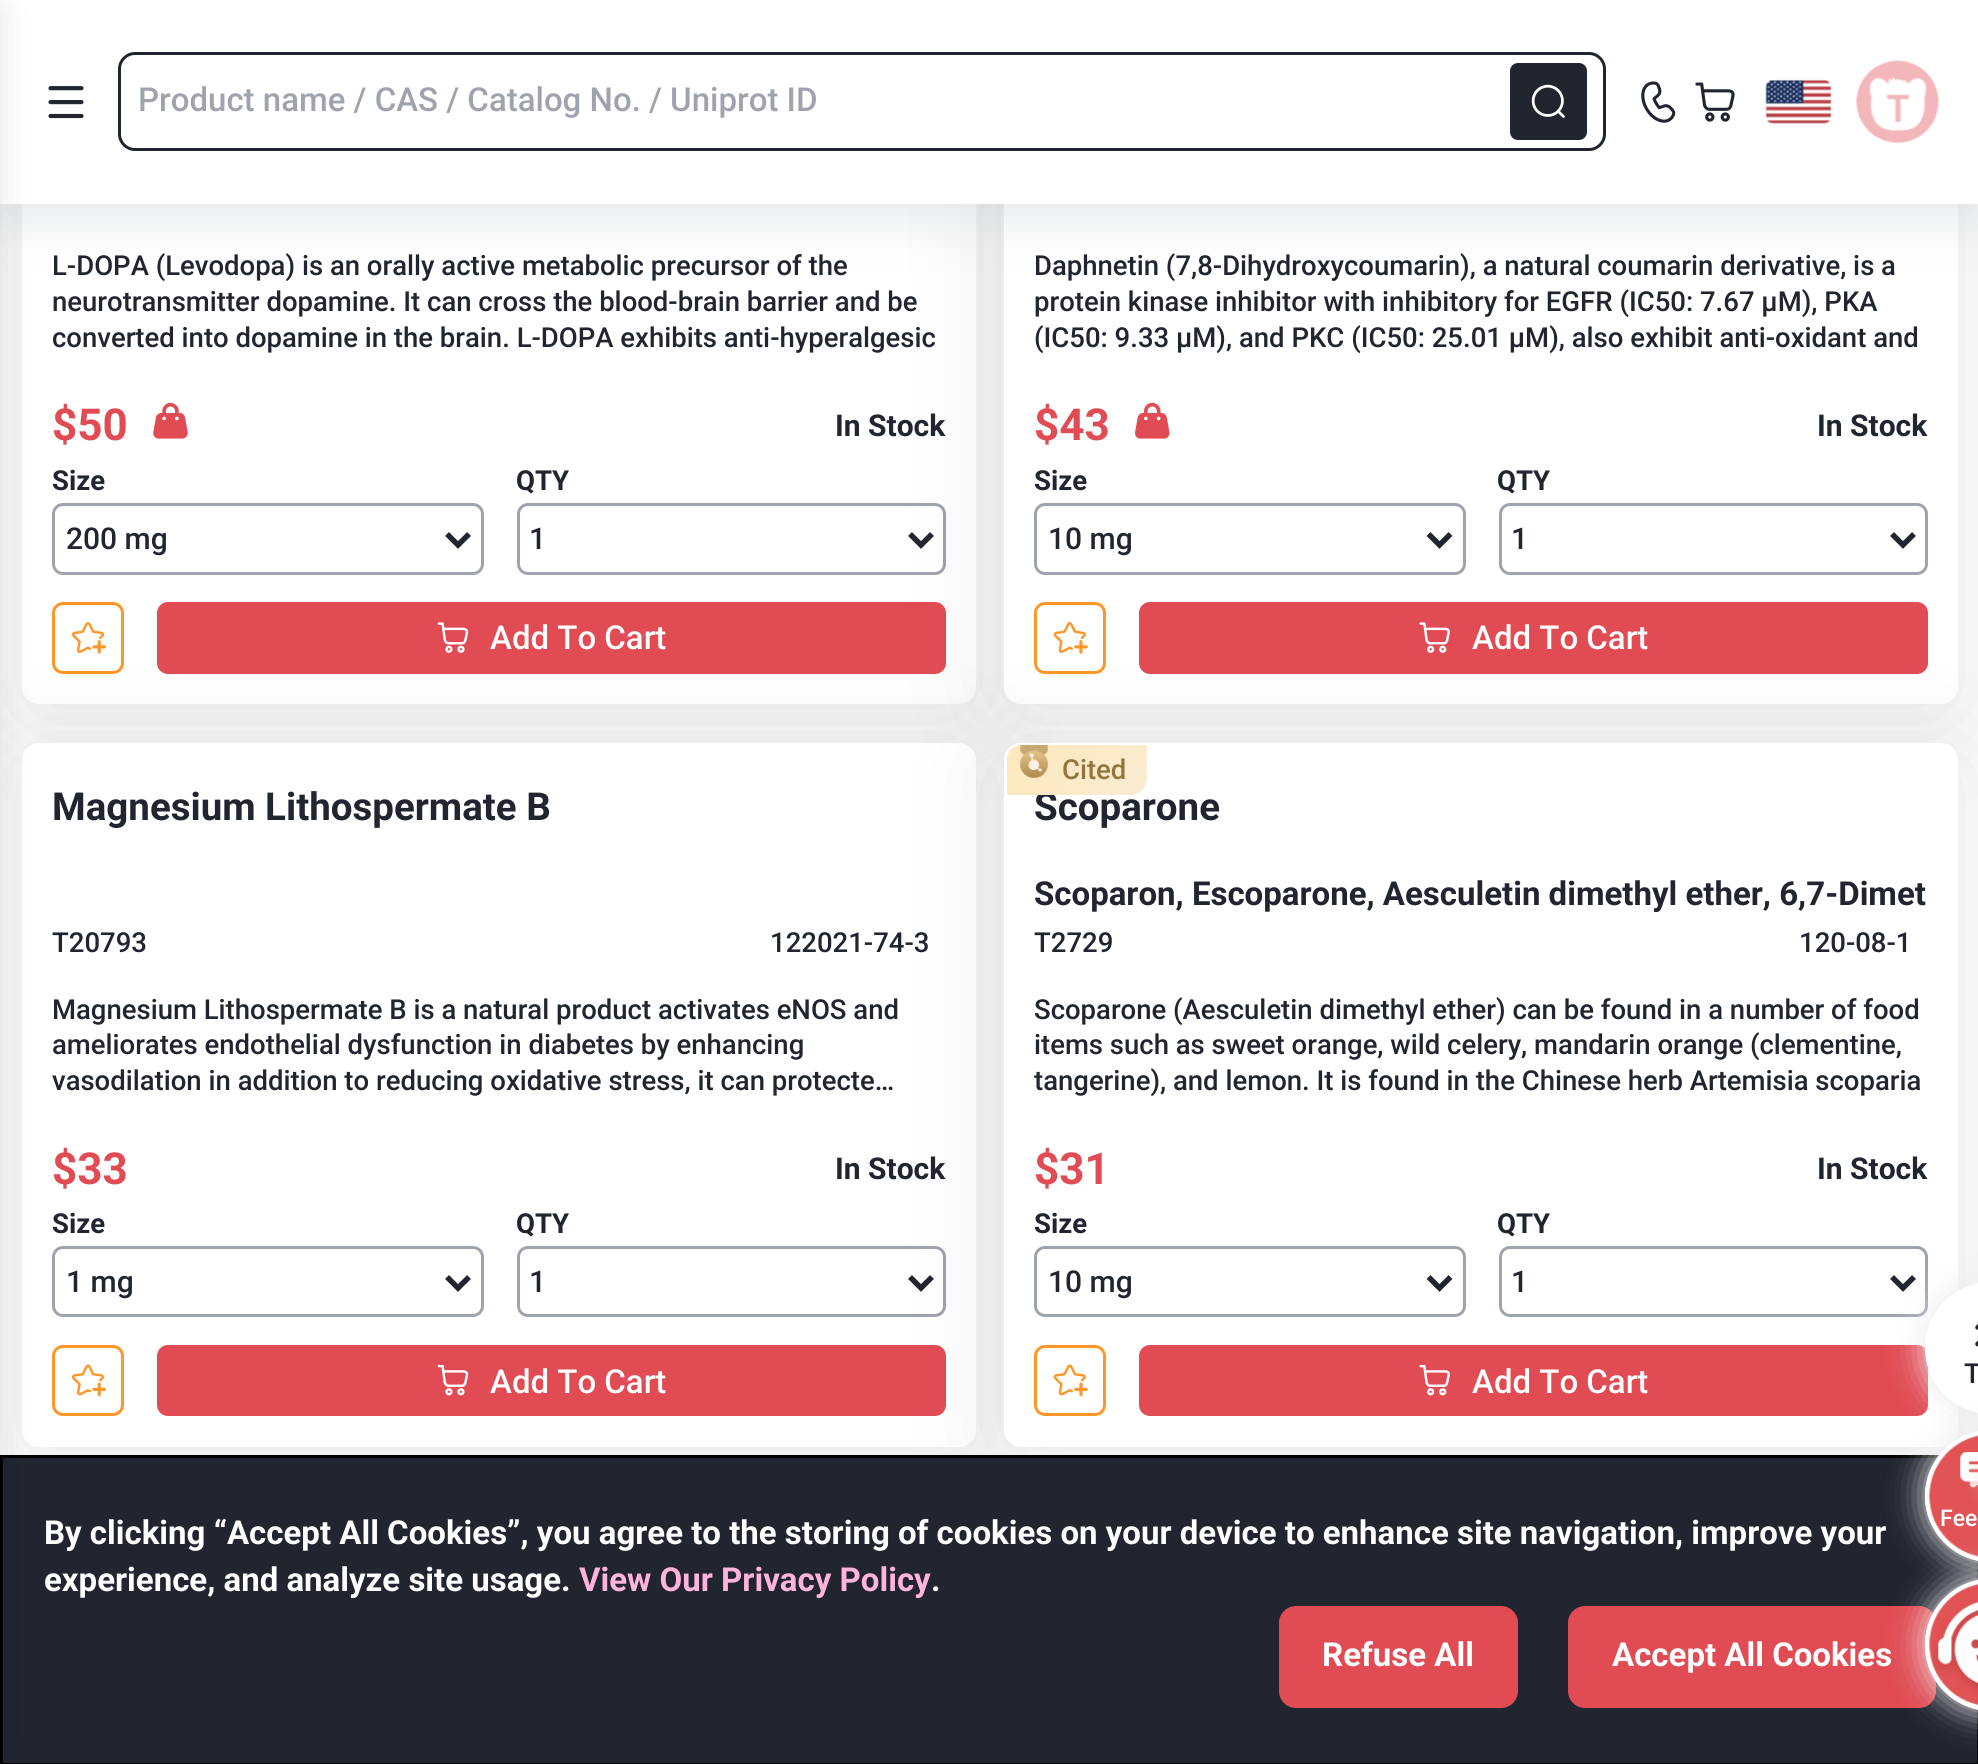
#include <cairo/cairo.h>
#include <math.h>
#include <stddef.h>

static cairo_t *cr;

static void use_color(int r, int g, int b) {
  cairo_set_source_rgb(cr, r / 255.0, g / 255.0, b / 255.0);
}

static void text(double x, double y, const char *s, const char *family, double size, int italic, int bold, int r, int g, int b) {
  cairo_select_font_face(cr, family, italic ? CAIRO_FONT_SLANT_ITALIC : CAIRO_FONT_SLANT_NORMAL,
    bold ? CAIRO_FONT_WEIGHT_BOLD : CAIRO_FONT_WEIGHT_NORMAL);
  cairo_set_font_size(cr, size);
  use_color(r, g, b);
  cairo_move_to(cr, x, y);
  cairo_show_text(cr, s);
}

static void box(double x, double y, double w, double h, int r, int g, int b) {
  use_color(r, g, b);
  cairo_rectangle(cr, x, y, w, h);
  cairo_fill(cr);
}

static void round_rect(double x, double y, double w, double h, double r) {
  cairo_new_sub_path(cr);
  cairo_arc(cr, x + w - r, y + h - r, r, 0, M_PI / 2);
  cairo_arc(cr, x + r, y + h - r, r, M_PI / 2, M_PI);
  cairo_arc(cr, x + r, y + r, r, M_PI, 1.5 * M_PI);
  cairo_arc(cr, x + w - r, y + r, r, 1.5 * M_PI, 2 * M_PI);
  cairo_close_path(cr);
}

static void shadow(double x, double y, double w, double h, double r, double blur, double alpha) {
  cairo_push_group_with_content(cr, CAIRO_CONTENT_ALPHA);
  cairo_set_operator(cr, CAIRO_OPERATOR_SOURCE);
  for (int i = 15; i >= -15 && fmin(w, h) + blur * i / 3 > 0; i -= 2) {
    double e = blur * i / 6;
    cairo_set_source_rgba(cr, 0, 0, 0, alpha * erfc((i - 1) / 8.5) / 2);
    round_rect(x - e, y - e, w + 2 * e, h + 2 * e, fmax(0, fmin(r + e + blur * .6, fmin(w, h) / 2 + e)));
    cairo_fill(cr);
  }
  cairo_pattern_t *soft = cairo_pop_group(cr);
  cairo_mask(cr, soft);
  cairo_pattern_destroy(soft);
}

static void picture(const char *path, double x, double y, double w, double h) {
  cairo_surface_t *image = cairo_image_surface_create_from_png(path);
  cairo_save(cr);
  cairo_set_source_surface(cr, image, x, y);
  cairo_rectangle(cr, x, y, w, h);
  cairo_fill(cr);
  cairo_restore(cr);
  cairo_surface_destroy(image);
}

static void draw(void) {
  cairo_pattern_t *gradient;
  use_color(255, 255, 255);
  cairo_paint(cr);
  use_color(0, 0, 0);
  shadow(22, 14, 954, 704, 17, 52, 0.1);
  use_color(255, 255, 255);
  round_rect(22, 0, 954, 704, 17);
  cairo_fill(cr);
  round_rect(518.5, 504.5, 426, 69, 9.5);
  use_color(159, 163, 173);
  cairo_set_line_width(cr, 3);
  cairo_stroke(cr);
  cairo_new_path(cr);
  cairo_move_to(cr, 910, 534);
  cairo_line_to(cr, 921, 545);
  cairo_line_to(cr, 932, 534);
  use_color(32, 37, 48);
  cairo_set_line_width(cr, 5.5);
  cairo_stroke(cr);
  use_color(0, 0, 0);
  shadow(1004, 14, 954, 704, 17, 52, 0.1);
  use_color(255, 255, 255);
  round_rect(1005.5, 1.5, 951, 701, 15.5);
  cairo_fill_preserve(cr);
  cairo_set_line_width(cr, 3);
  cairo_stroke(cr);
  use_color(187, 191, 195);
  shadow(0, 17, 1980, 203, 0, 23.5, 0.35);
  box(0, 0, 1978, 204, 255, 255, 255);
  picture("img_01.png", 48, 86, 36, 33);
  round_rect(119.5, 53.5, 1485, 96, 15.5);
  use_color(32, 37, 48);
  cairo_stroke(cr);
  round_rect(1510, 63, 77, 77, 8);
  cairo_fill(cr);
  picture("img_02.png", 1531, 84, 34, 34);
  picture("img_03.png", 1641, 81, 35, 42);
  picture("img_04.png", 1695, 82, 40, 40);
  picture("img_05.png", 1765, 79, 67, 45);
  picture("img_06.png", 1856, 60, 83, 84);
  use_color(0, 0, 0);
  shadow(22, 756, 954, 704, 17, 52, 0.1);
  use_color(255, 255, 255);
  round_rect(23.5, 744.5, 951, 701, 15.5);
  cairo_fill_preserve(cr);
  cairo_stroke(cr);
  round_rect(518.5, 1247.5, 426, 68, 9.5);
  use_color(159, 163, 173);
  cairo_stroke(cr);
  cairo_new_path(cr);
  cairo_move_to(cr, 910, 1277);
  cairo_line_to(cr, 921, 1288);
  cairo_line_to(cr, 932, 1277);
  use_color(32, 37, 48);
  cairo_set_line_width(cr, 5.5);
  cairo_stroke(cr);
  use_color(0, 0, 0);
  shadow(1004, 756, 954, 704, 17, 52, 0.1);
  use_color(32, 37, 48);
  cairo_rectangle(cr, 1.5, 1456.5, 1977, 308);
  cairo_fill_preserve(cr);
  use_color(0, 0, 0);
  cairo_set_line_width(cr, 3);
  cairo_stroke(cr);
  use_color(0, 0, 0);
  shadow(-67, -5, 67, 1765, 17, 16.5, 0.1);
  picture("img_07.png", 153, 402, 35, 37);
  round_rect(53.5, 504.5, 429, 69, 9.5);
  use_color(159, 163, 173);
  cairo_stroke(cr);
  cairo_new_path(cr);
  cairo_move_to(cr, 447, 534);
  cairo_line_to(cr, 458, 545);
  cairo_line_to(cr, 469, 534);
  use_color(32, 37, 48);
  cairo_set_line_width(cr, 5.5);
  cairo_stroke(cr);
  round_rect(53.5, 603.5, 69, 69, 9.5);
  use_color(255, 150, 39);
  cairo_set_line_width(cr, 3);
  cairo_stroke(cr);
  picture("img_08.png", 71, 622, 35, 32);
  use_color(225, 76, 84);
  round_rect(158.5, 603.5, 786, 69, 9.5);
  cairo_fill_preserve(cr);
  cairo_stroke(cr);
  picture("img_09.png", 437, 622, 32, 31);
  picture("img_10.png", 1135, 402, 35, 37);
  round_rect(1035.5, 504.5, 429, 69, 9.5);
  use_color(159, 163, 173);
  cairo_stroke(cr);
  cairo_new_path(cr);
  cairo_move_to(cr, 1428.5, 534);
  cairo_line_to(cr, 1439.5, 545);
  cairo_line_to(cr, 1450.5, 534);
  use_color(32, 37, 48);
  cairo_set_line_width(cr, 5.5);
  cairo_stroke(cr);
  round_rect(1500.5, 504.5, 426, 69, 9.5);
  use_color(159, 163, 173);
  cairo_set_line_width(cr, 3);
  cairo_stroke(cr);
  cairo_new_path(cr);
  cairo_move_to(cr, 1892, 534);
  cairo_line_to(cr, 1903, 545);
  cairo_line_to(cr, 1914, 534);
  use_color(32, 37, 48);
  cairo_set_line_width(cr, 5.5);
  cairo_stroke(cr);
  round_rect(1035.5, 603.5, 69, 69, 9.5);
  use_color(255, 150, 39);
  cairo_set_line_width(cr, 3);
  cairo_stroke(cr);
  picture("img_11.png", 1053, 622, 35, 32);
  use_color(225, 76, 84);
  round_rect(1140.5, 603.5, 786, 69, 9.5);
  cairo_fill_preserve(cr);
  cairo_stroke(cr);
  picture("img_12.png", 1419, 622, 31, 31);
  round_rect(53.5, 1247.5, 429, 68, 9.5);
  use_color(159, 163, 173);
  cairo_stroke(cr);
  cairo_new_path(cr);
  cairo_move_to(cr, 447, 1277);
  cairo_line_to(cr, 458, 1288);
  cairo_line_to(cr, 469, 1277);
  use_color(32, 37, 48);
  cairo_set_line_width(cr, 5.5);
  cairo_stroke(cr);
  round_rect(53.5, 1346.5, 69, 68, 9.5);
  use_color(255, 150, 39);
  cairo_set_line_width(cr, 3);
  cairo_stroke(cr);
  picture("img_13.png", 71, 1364, 35, 33);
  use_color(225, 76, 84);
  round_rect(158.5, 1346.5, 786, 68, 9.5);
  cairo_fill_preserve(cr);
  cairo_stroke(cr);
  picture("img_14.png", 437, 1364, 32, 32);
  use_color(255, 255, 255);
  round_rect(1005.5, 744.5, 951, 701, 15.5);
  cairo_fill_preserve(cr);
  cairo_stroke(cr);
  round_rect(1035.5, 1247.5, 429, 68, 9.5);
  use_color(159, 163, 173);
  cairo_stroke(cr);
  cairo_new_path(cr);
  cairo_move_to(cr, 1428.5, 1277);
  cairo_line_to(cr, 1439.5, 1288);
  cairo_line_to(cr, 1450.5, 1277);
  use_color(32, 37, 48);
  cairo_set_line_width(cr, 5.5);
  cairo_stroke(cr);
  round_rect(1500.5, 1247.5, 426, 68, 9.5);
  use_color(159, 163, 173);
  cairo_set_line_width(cr, 3);
  cairo_stroke(cr);
  cairo_new_path(cr);
  cairo_move_to(cr, 1892, 1277);
  cairo_line_to(cr, 1903, 1288);
  cairo_line_to(cr, 1914, 1277);
  use_color(32, 37, 48);
  cairo_set_line_width(cr, 5.5);
  cairo_stroke(cr);
  round_rect(1035.5, 1346.5, 69, 68, 9.5);
  use_color(255, 150, 39);
  cairo_set_line_width(cr, 3);
  cairo_stroke(cr);
  picture("img_16.png", 1053, 1364, 35, 33);
  use_color(225, 76, 84);
  round_rect(1140.5, 1346.5, 786, 68, 9.5);
  cairo_fill_preserve(cr);
  cairo_stroke(cr);
  picture("img_17.png", 1419, 1364, 31, 32);
  use_color(235, 235, 235);
  shadow(1925, 1282, 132, 132, 66, 16.5, 1);
  use_color(255, 255, 255);
  round_rect(1925, 1282, 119, 132, 66);
  cairo_fill(cr);
  picture("img_18.png", 1975, 1323, 3, 24);
  use_color(225, 76, 84);
  round_rect(1568, 1606, 368, 102, 17);
  cairo_fill(cr);
  use_color(235, 235, 235);
  shadow(1925, 1430, 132, 132, 66, 16.5, 1);
  use_color(255, 255, 255);
  round_rect(1925, 1430, 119, 132, 66);
  cairo_fill(cr);
  picture("img_19.png", 1925, 1435, 53, 126);
  use_color(235, 235, 235);
  shadow(1925, 1579, 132, 132, 66, 16.5, 1);
  use_color(255, 255, 255);
  round_rect(1925, 1579, 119, 132, 66);
  cairo_fill(cr);
  picture("img_20.png", 1925, 1579, 53, 131);
  use_color(225, 76, 84);
  round_rect(1279, 1606, 239, 102, 17);
  cairo_fill(cr);
  text(138, 111, "Product name / CAS / Catalog No. / Uniprot ID", "Roboto Medium", 33, 0, 0, 159, 163, 173);
  text(52, 275, "L-DOPA (Levodopa) is an orally active metabolic precursor of the", "Roboto Medium", 27.5, 0, 0, 32, 37, 48);
  text(52, 311, "neurotransmitter dopamine. It can cross the blood-brain barrier and be", "Roboto Medium", 27.5, 0, 0, 32, 37, 48);
  text(52, 347, "converted into dopamine in the brain. L-DOPA exhibits anti-hyperalgesic", "Roboto Medium", 27.5, 0, 0, 32, 37, 48);
  text(52, 440, "$50", "Roboto", 44, 0, 1, 225, 76, 84);
  text(835, 436, "In Stock", "Roboto", 30, 0, 1, 32, 37, 48);
  text(52, 490, "Size", "Roboto", 27.5, 0, 1, 32, 37, 48);
  text(66, 549, "200 mg", "Roboto Medium", 30, 0, 0, 32, 37, 48);
  text(516, 490, "QTY", "Roboto", 27.5, 0, 1, 32, 37, 48);
  text(529, 549, "1", "Roboto Medium", 30, 0, 0, 32, 37, 48);
  text(490, 649, "Add To Cart", "Roboto Medium", 33, 0, 0, 255, 255, 255);
  text(1034, 275, "Daphnetin (7,8-Dihydroxycoumarin), a natural coumarin derivative, is a", "Roboto Medium", 27.5, 0, 0, 32, 37, 48);
  text(1034, 311, "protein kinase inhibitor with inhibitory for EGFR (IC50: 7.67 μM), PKA", "Roboto Medium", 27.5, 0, 0, 32, 37, 48);
  text(1034, 347, "(IC50: 9.33 μM), and PKC (IC50: 25.01 μM), also exhibit anti-oxidant and", "Roboto Medium", 27.5, 0, 0, 32, 37, 48);
  text(1034, 440, "$43", "Roboto", 44, 0, 1, 225, 76, 84);
  text(1817, 436, "In Stock", "Roboto", 30, 0, 1, 32, 37, 48);
  text(1034, 490, "Size", "Roboto", 27.5, 0, 1, 32, 37, 48);
  text(1048, 549, "10 mg", "Roboto Medium", 30, 0, 0, 32, 37, 48);
  text(1497, 490, "QTY", "Roboto", 27.5, 0, 1, 32, 37, 48);
  text(1511, 549, "1", "Roboto Medium", 30, 0, 0, 32, 37, 48);
  text(1472, 649, "Add To Cart", "Roboto Medium", 33, 0, 0, 255, 255, 255);
  text(52, 820, "Magnesium Lithospermate B", "Roboto", 38.5, 0, 1, 32, 37, 48);
  text(52, 952, "T20793", "Roboto Medium", 27.5, 0, 0, 32, 37, 48);
  text(770, 952, "122021-74-3", "Roboto Medium", 27.5, 0, 0, 32, 37, 48);
  text(52, 1019, "Magnesium Lithospermate B is a natural product activates eNOS and", "Roboto Medium", 27.5, 0, 0, 32, 37, 48);
  text(52, 1054, "ameliorates endothelial dysfunction in diabetes by enhancing", "Roboto Medium", 27.5, 0, 0, 32, 37, 48);
  text(52, 1090, "vasodilation in addition to reducing oxidative stress, it can protecte…", "Roboto Medium", 27.5, 0, 0, 32, 37, 48);
  text(52, 1184, "$33", "Roboto", 44, 0, 1, 225, 76, 84);
  text(835, 1179, "In Stock", "Roboto", 30, 0, 1, 32, 37, 48);
  text(52, 1233, "Size", "Roboto", 27.5, 0, 1, 32, 37, 48);
  text(66, 1292, "1 mg", "Roboto Medium", 30, 0, 0, 32, 37, 48);
  text(516, 1233, "QTY", "Roboto", 27.5, 0, 1, 32, 37, 48);
  text(529, 1292, "1", "Roboto Medium", 30, 0, 0, 32, 37, 48);
  text(490, 1393, "Add To Cart", "Roboto Medium", 33, 0, 0, 255, 255, 255);
  text(1034, 820, "Scoparone", "Roboto", 38.5, 0, 1, 32, 37, 48);
  gradient = cairo_pattern_create_linear(1124, 817, 1029, 723);
  cairo_pattern_add_color_stop_rgba(gradient, 0, 0.973, 0.925, 0.824, 1);
  cairo_pattern_add_color_stop_rgba(gradient, 1, 1, 0.914, 0.737, 1);
  cairo_set_source(cr, gradient);
  cairo_pattern_destroy(gradient);
  cairo_new_path(cr);
  cairo_move_to(cr, 1021, 745);
  cairo_line_to(cr, 1147, 745);
  cairo_line_to(cr, 1147, 778);
  cairo_curve_to(cr, 1147, 787.5, 1139.5, 795, 1130, 795);
  cairo_line_to(cr, 1007, 795);
  cairo_line_to(cr, 1007, 759);
  cairo_curve_to(cr, 1007, 751.5, 1013.5, 745, 1021, 745);
  cairo_close_path(cr);
  cairo_fill(cr);
  picture("img_15.png", 1020, 744, 28, 34);
  text(1062, 779, "Cited", "Roboto Medium", 27.5, 0, 0, 147, 118, 61);
  text(1034, 905, "Scoparon, Escoparone, Aesculetin dimethyl ether, 6,7-Dimet", "Roboto", 33, 0, 1, 32, 37, 48);
  text(1034, 952, "T2729", "Roboto Medium", 27.5, 0, 0, 32, 37, 48);
  text(1799, 952, "120-08-1", "Roboto Medium", 27.5, 0, 0, 32, 37, 48);
  text(1034, 1019, "Scoparone (Aesculetin dimethyl ether) can be found in a number of food", "Roboto Medium", 27.5, 0, 0, 32, 37, 48);
  text(1034, 1054, "items such as sweet orange, wild celery, mandarin orange (clementine,", "Roboto Medium", 27.5, 0, 0, 32, 37, 48);
  text(1034, 1090, "tangerine), and lemon. It is found in the Chinese herb Artemisia scoparia", "Roboto Medium", 27.5, 0, 0, 32, 37, 48);
  text(1034, 1184, "$31", "Roboto", 44, 0, 1, 225, 76, 84);
  text(1817, 1179, "In Stock", "Roboto", 30, 0, 1, 32, 37, 48);
  text(1034, 1233, "Size", "Roboto", 27.5, 0, 1, 32, 37, 48);
  text(1048, 1292, "10 mg", "Roboto Medium", 30, 0, 0, 32, 37, 48);
  text(1497, 1233, "QTY", "Roboto", 27.5, 0, 1, 32, 37, 48);
  text(1511, 1292, "1", "Roboto Medium", 30, 0, 0, 32, 37, 48);
  text(1472, 1393, "Add To Cart", "Roboto Medium", 33, 0, 0, 255, 255, 255);
  text(1964, 1383, "T", "Roboto Medium", 27.5, 0, 0, 32, 37, 48);
  text(1940, 1526, "Fee", "Roboto Medium", 23, 0, 0, 255, 255, 255);
  text(44, 1544, "By clicking “Accept All Cookies”, you agree to the storing of cookies on your device to enhance site navigation, improve your", "Roboto", 33, 0, 1, 255, 255, 255);
  text(44, 1591, "experience, and analyze site usage.", "Roboto", 33, 0, 1, 255, 255, 255);
  text(579, 1591, "View Our Privacy Policy", "Roboto", 33, 0, 1, 255, 179, 221);
  text(931, 1591, ".", "Roboto", 33, 0, 1, 255, 255, 255);
  text(1322, 1666, "Refuse All", "Roboto", 33, 0, 1, 255, 255, 255);
  text(1612, 1666, "Accept All Cookies", "Roboto", 33, 0, 1, 255, 255, 255);
}

int main(void) {
  cairo_surface_t *surface = cairo_image_surface_create(CAIRO_FORMAT_RGB24, 1978, 1764);
  cr = cairo_create(surface);
  cairo_font_options_t *options = cairo_font_options_create();
  cairo_font_options_set_hint_metrics(options, CAIRO_HINT_METRICS_OFF);
  cairo_font_options_set_hint_style(options, CAIRO_HINT_STYLE_NONE);
  cairo_set_font_options(cr, options);
  cairo_set_miter_limit(cr, 4);
  draw();
  cairo_surface_write_to_png(surface, "out.png");
  cairo_font_options_destroy(options);
  cairo_destroy(cr);
  cairo_surface_destroy(surface);
  return 0;
}
